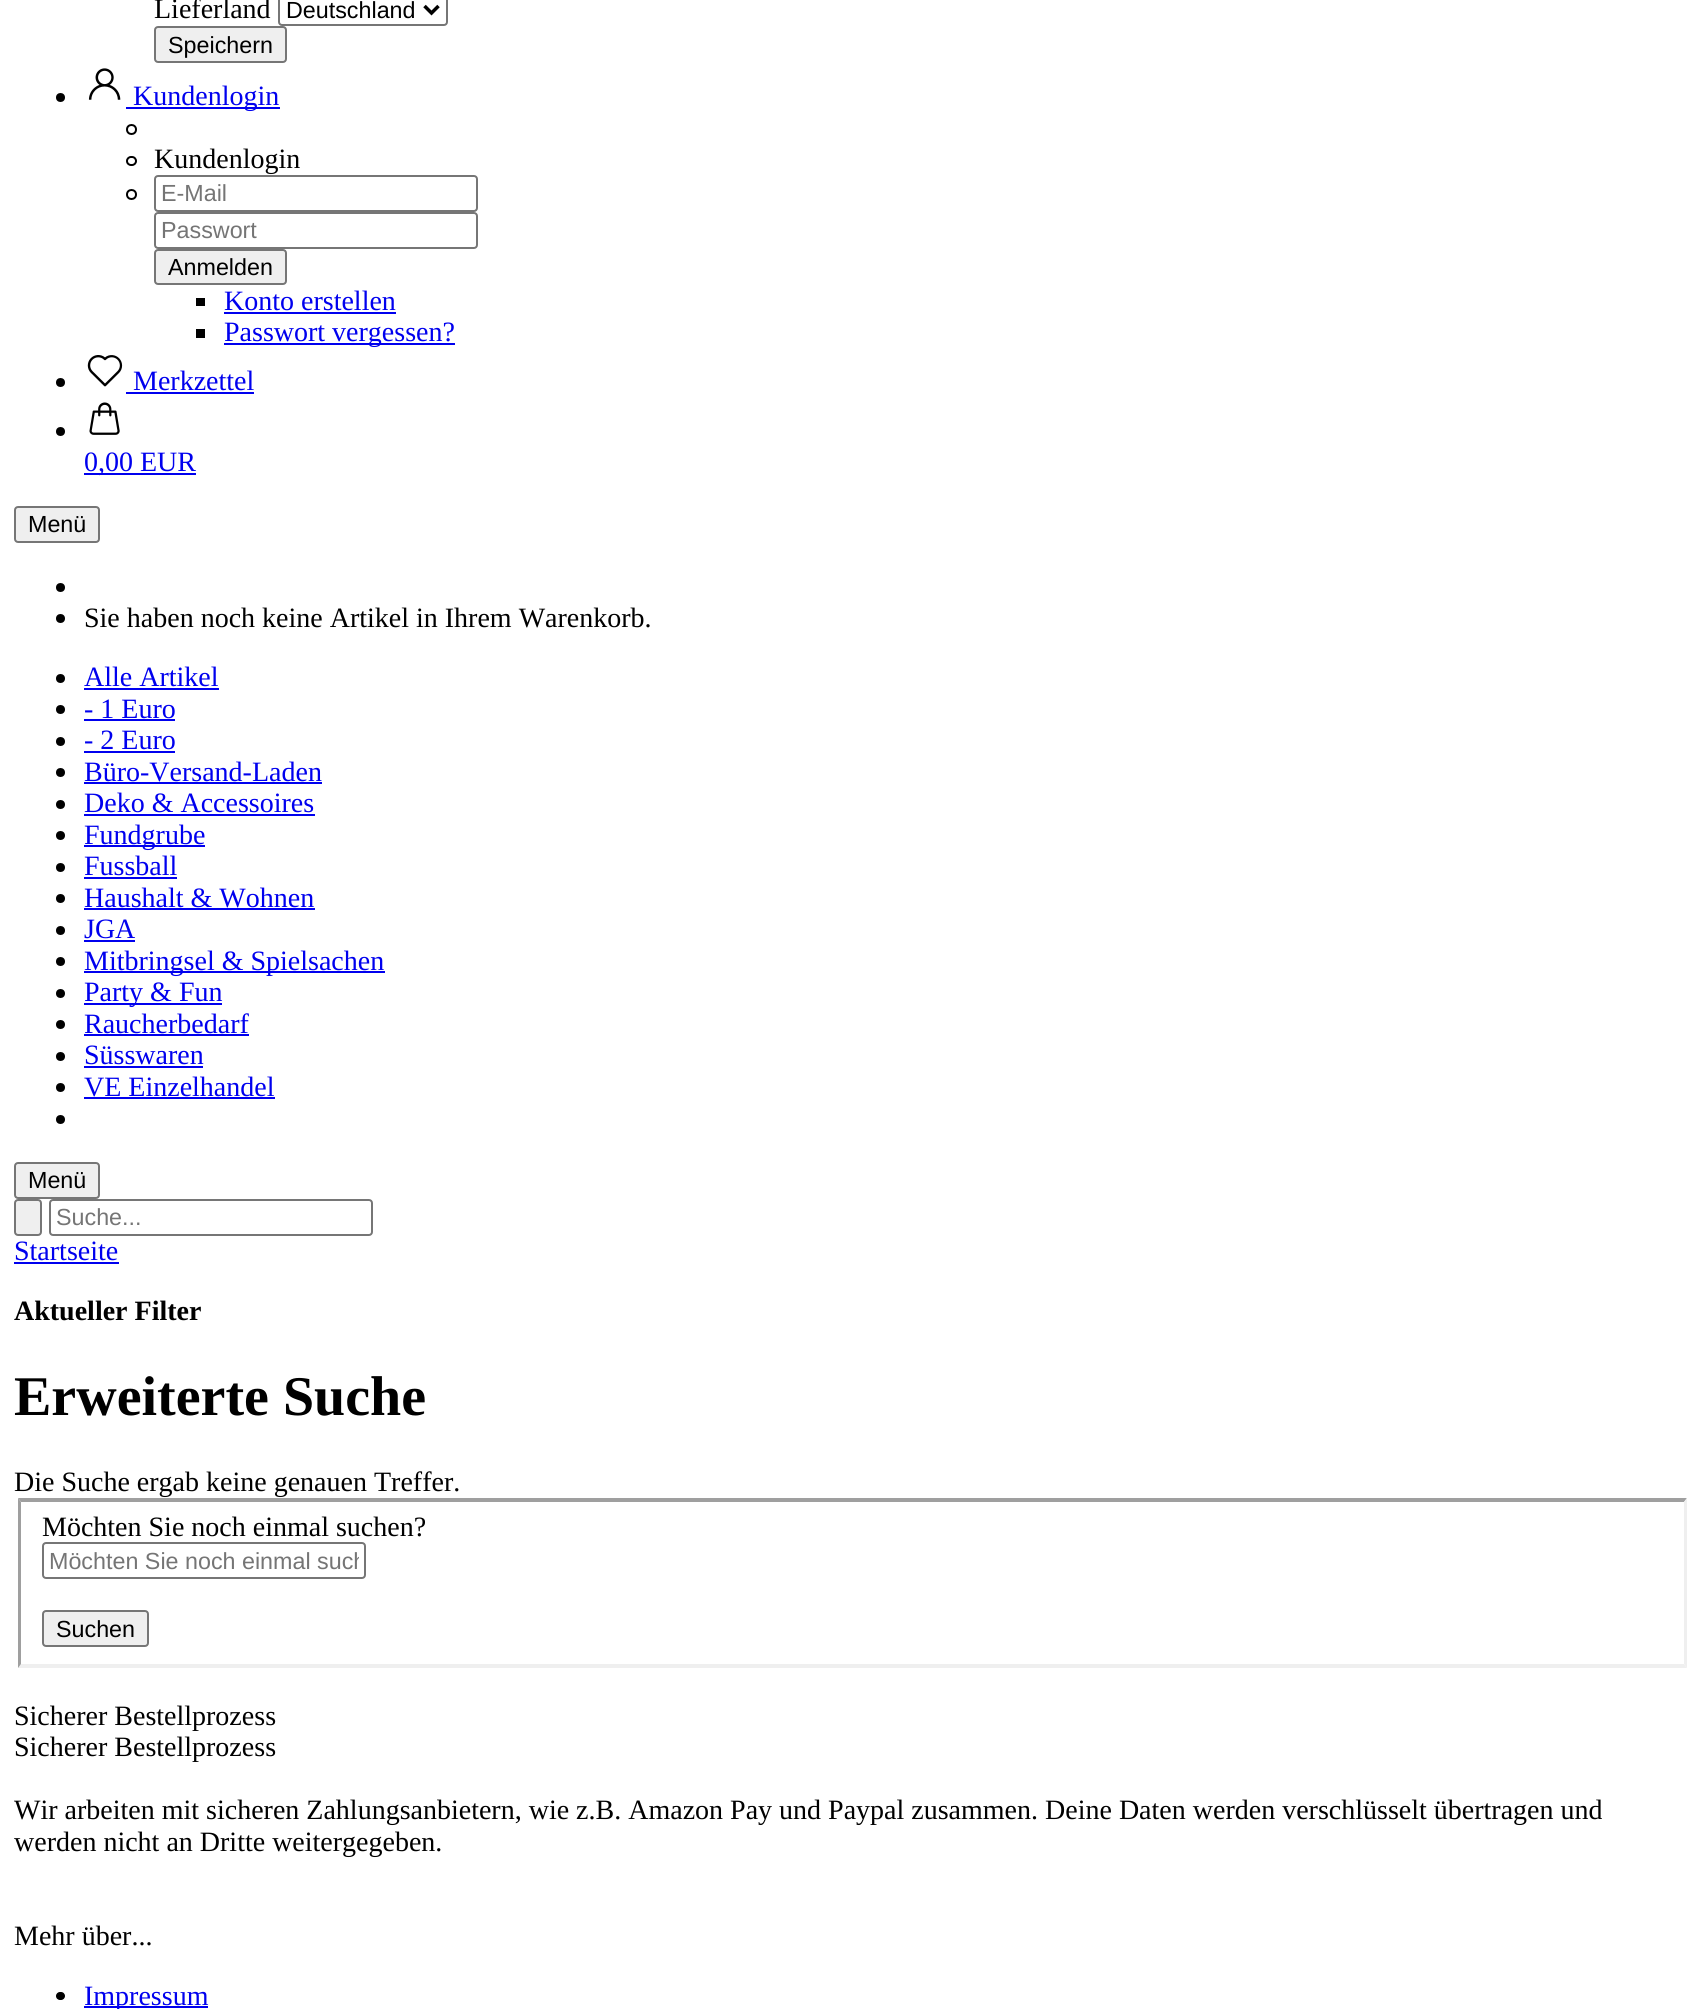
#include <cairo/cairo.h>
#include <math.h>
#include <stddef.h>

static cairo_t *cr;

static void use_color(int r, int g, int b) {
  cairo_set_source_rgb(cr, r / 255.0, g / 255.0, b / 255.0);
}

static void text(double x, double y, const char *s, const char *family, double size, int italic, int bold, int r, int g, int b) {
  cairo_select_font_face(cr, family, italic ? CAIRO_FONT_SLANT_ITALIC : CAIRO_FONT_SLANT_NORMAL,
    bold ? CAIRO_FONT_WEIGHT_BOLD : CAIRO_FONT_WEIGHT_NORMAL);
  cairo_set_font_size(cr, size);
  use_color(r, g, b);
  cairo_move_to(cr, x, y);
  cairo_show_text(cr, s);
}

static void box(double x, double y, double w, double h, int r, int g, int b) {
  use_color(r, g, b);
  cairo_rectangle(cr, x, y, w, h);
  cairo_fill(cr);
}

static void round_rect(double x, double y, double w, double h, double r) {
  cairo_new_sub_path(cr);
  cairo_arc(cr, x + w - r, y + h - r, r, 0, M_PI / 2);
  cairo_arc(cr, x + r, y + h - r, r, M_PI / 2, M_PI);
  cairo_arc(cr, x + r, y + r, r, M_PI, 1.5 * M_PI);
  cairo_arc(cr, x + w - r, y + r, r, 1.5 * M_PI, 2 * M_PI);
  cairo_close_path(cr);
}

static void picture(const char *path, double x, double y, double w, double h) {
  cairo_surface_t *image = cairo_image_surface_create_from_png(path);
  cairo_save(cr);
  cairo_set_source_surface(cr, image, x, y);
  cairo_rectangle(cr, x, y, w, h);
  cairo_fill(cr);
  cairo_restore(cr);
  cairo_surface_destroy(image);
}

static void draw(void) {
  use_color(255, 255, 255);
  cairo_paint(cr);
  round_rect(279, -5, 168, 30, 3);
  use_color(118, 118, 118);
  cairo_stroke(cr);
  cairo_new_path(cr);
  cairo_move_to(cr, 424.5, 6);
  cairo_line_to(cr, 431.5, 13);
  cairo_line_to(cr, 438.5, 6);
  use_color(0, 0, 0);
  cairo_set_line_width(cr, 3.5);
  cairo_stroke(cr);
  use_color(239, 239, 239);
  round_rect(155, 27, 131, 35, 3);
  cairo_fill_preserve(cr);
  use_color(118, 118, 118);
  cairo_set_line_width(cr, 2);
  cairo_stroke(cr);
  use_color(0, 0, 0);
  cairo_arc(cr, 60.5, 97.5, 4.5, 0, 2 * M_PI);
  cairo_fill(cr);
  picture("img_01.png", 88, 68, 33, 32);
  box(126, 107, 154, 2, 0, 0, 238);
  cairo_arc(cr, 131.5, 129.5, 4.5, 0, 2 * M_PI);
  use_color(0, 0, 0);
  cairo_stroke(cr);
  round_rect(127, 157, 9, 8, 4);
  cairo_stroke(cr);
  cairo_arc(cr, 131.5, 194.5, 4.5, 0, 2 * M_PI);
  cairo_stroke(cr);
  round_rect(155, 176, 322, 35, 3);
  use_color(118, 118, 118);
  cairo_stroke(cr);
  round_rect(155, 213, 322, 35, 3);
  cairo_stroke(cr);
  use_color(239, 239, 239);
  round_rect(155, 250, 131, 34, 3);
  cairo_fill_preserve(cr);
  use_color(118, 118, 118);
  cairo_stroke(cr);
  box(196, 298, 9, 8, 0, 0, 0);
  box(224, 312, 172, 2, 0, 0, 238);
  box(196, 329, 9, 9, 0, 0, 0);
  box(224, 343, 231, 2, 0, 0, 238);
  use_color(0, 0, 0);
  cairo_arc(cr, 60.5, 382.5, 4.5, 0, 2 * M_PI);
  cairo_fill(cr);
  picture("img_02.png", 87, 355, 36, 32);
  box(126, 392, 128, 2, 0, 0, 238);
  use_color(0, 0, 0);
  cairo_arc(cr, 60.5, 431.5, 4.5, 0, 2 * M_PI);
  cairo_fill(cr);
  picture("img_03.png", 89, 402, 31, 33);
  box(84, 473, 112, 2, 0, 0, 238);
  use_color(239, 239, 239);
  round_rect(15, 507, 84, 35, 3);
  cairo_fill_preserve(cr);
  use_color(118, 118, 118);
  cairo_stroke(cr);
  use_color(0, 0, 0);
  cairo_arc(cr, 60.5, 587.5, 4.5, 0, 2 * M_PI);
  cairo_fill(cr);
  cairo_arc(cr, 60.5, 618.5, 4.5, 0, 2 * M_PI);
  cairo_fill(cr);
  cairo_arc(cr, 60.5, 678.5, 4.5, 0, 2 * M_PI);
  cairo_fill(cr);
  box(84, 688, 135, 2, 0, 0, 238);
  use_color(0, 0, 0);
  cairo_arc(cr, 60.5, 709.5, 4.5, 0, 2 * M_PI);
  cairo_fill(cr);
  box(84, 719, 91, 2, 0, 0, 238);
  use_color(0, 0, 0);
  cairo_arc(cr, 60.5, 741.5, 4.5, 0, 2 * M_PI);
  cairo_fill(cr);
  box(84, 751, 91, 2, 0, 0, 238);
  use_color(0, 0, 0);
  cairo_arc(cr, 60.5, 772.5, 4.5, 0, 2 * M_PI);
  cairo_fill(cr);
  box(84, 782, 238, 2, 0, 0, 238);
  use_color(0, 0, 0);
  cairo_arc(cr, 60.5, 804.5, 4.5, 0, 2 * M_PI);
  cairo_fill(cr);
  box(84, 814, 231, 2, 0, 0, 238);
  use_color(0, 0, 0);
  cairo_arc(cr, 60.5, 835.5, 4.5, 0, 2 * M_PI);
  cairo_fill(cr);
  box(84, 845, 121, 2, 0, 0, 238);
  use_color(0, 0, 0);
  cairo_arc(cr, 60.5, 867.5, 4.5, 0, 2 * M_PI);
  cairo_fill(cr);
  box(84, 877, 93, 2, 0, 0, 238);
  use_color(0, 0, 0);
  cairo_arc(cr, 60.5, 898.5, 4.5, 0, 2 * M_PI);
  cairo_fill(cr);
  box(84, 908, 231, 2, 0, 0, 238);
  use_color(0, 0, 0);
  cairo_arc(cr, 60.5, 930.5, 4.5, 0, 2 * M_PI);
  cairo_fill(cr);
  box(84, 940, 51, 2, 0, 0, 238);
  use_color(0, 0, 0);
  cairo_arc(cr, 60.5, 961.5, 4.5, 0, 2 * M_PI);
  cairo_fill(cr);
  box(84, 971, 301, 2, 0, 0, 238);
  use_color(0, 0, 0);
  cairo_arc(cr, 60.5, 993.5, 4.5, 0, 2 * M_PI);
  cairo_fill(cr);
  box(84, 1003, 138, 2, 0, 0, 238);
  use_color(0, 0, 0);
  cairo_arc(cr, 60.5, 1024.5, 4.5, 0, 2 * M_PI);
  cairo_fill(cr);
  box(84, 1034, 165, 2, 0, 0, 238);
  use_color(0, 0, 0);
  cairo_arc(cr, 60.5, 1056.5, 4.5, 0, 2 * M_PI);
  cairo_fill(cr);
  box(84, 1066, 119, 2, 0, 0, 238);
  use_color(0, 0, 0);
  cairo_arc(cr, 60.5, 1087.5, 4.5, 0, 2 * M_PI);
  cairo_fill(cr);
  box(84, 1097, 191, 2, 0, 0, 238);
  use_color(0, 0, 0);
  cairo_arc(cr, 60.5, 1119.5, 4.5, 0, 2 * M_PI);
  cairo_fill(cr);
  use_color(239, 239, 239);
  round_rect(15, 1163, 84, 35, 3);
  cairo_fill_preserve(cr);
  use_color(118, 118, 118);
  cairo_stroke(cr);
  use_color(239, 239, 239);
  round_rect(15, 1200, 26, 35, 3);
  cairo_fill_preserve(cr);
  use_color(118, 118, 118);
  cairo_stroke(cr);
  round_rect(50, 1200, 322, 35, 3);
  cairo_stroke(cr);
  box(14, 1262, 105, 2, 0, 0, 238);
  use_color(159, 159, 159);
  cairo_new_path(cr);
  cairo_move_to(cr, 18, 1498);
  cairo_line_to(cr, 1687, 1498);
  cairo_line_to(cr, 1684, 1502);
  cairo_line_to(cr, 21, 1502);
  cairo_close_path(cr);
  cairo_fill(cr);
  use_color(239, 239, 239);
  cairo_new_path(cr);
  cairo_move_to(cr, 1687, 1498);
  cairo_line_to(cr, 1687, 1668);
  cairo_line_to(cr, 1684, 1664);
  cairo_line_to(cr, 1684, 1502);
  cairo_close_path(cr);
  cairo_fill(cr);
  cairo_new_path(cr);
  cairo_move_to(cr, 1687, 1668);
  cairo_line_to(cr, 18, 1668);
  cairo_line_to(cr, 21, 1664);
  cairo_line_to(cr, 1684, 1664);
  cairo_close_path(cr);
  cairo_fill(cr);
  use_color(159, 159, 159);
  cairo_new_path(cr);
  cairo_move_to(cr, 18, 1668);
  cairo_line_to(cr, 18, 1498);
  cairo_line_to(cr, 21, 1502);
  cairo_line_to(cr, 21, 1664);
  cairo_close_path(cr);
  cairo_fill(cr);
  round_rect(43, 1543, 322, 35, 3);
  use_color(118, 118, 118);
  cairo_stroke(cr);
  use_color(239, 239, 239);
  round_rect(43, 1611, 105, 35, 3);
  cairo_fill_preserve(cr);
  use_color(118, 118, 118);
  cairo_stroke(cr);
  use_color(0, 0, 0);
  round_rect(56, 1992, 9, 8, 4);
  cairo_fill(cr);
  box(84, 2006, 124, 2, 0, 0, 238);
  text(154, 18, "Lieferland", "Liberation Serif", 28, 0, 0, 0, 0, 0);
  text(286, 18, "Deutschland", "Liberation Sans", 23.3, 0, 0, 0, 0, 0);
  text(168, 53, "Speichern", "Liberation Sans", 23.3, 0, 0, 0, 0, 0);
  text(133, 105, "Kundenlogin", "Liberation Serif", 28, 0, 0, 0, 0, 238);
  text(154, 168, "Kundenlogin", "Liberation Serif", 28, 0, 0, 0, 0, 0);
  text(161, 201, "E-Mail", "Liberation Sans", 23.3, 0, 0, 117, 117, 117);
  text(161, 238, "Passwort", "Liberation Sans", 23.3, 0, 0, 117, 117, 117);
  text(168, 275, "Anmelden", "Liberation Sans", 23.3, 0, 0, 0, 0, 0);
  text(224, 310, "Konto erstellen", "Liberation Serif", 28, 0, 0, 0, 0, 238);
  text(224, 341, "Passwort vergessen?", "Liberation Serif", 28, 0, 0, 0, 0, 238);
  text(133, 390, "Merkzettel", "Liberation Serif", 28, 0, 0, 0, 0, 238);
  text(84, 471, "0,00 EUR", "Liberation Serif", 28, 0, 0, 0, 0, 238);
  text(28, 532, "Menü", "Liberation Sans", 23.3, 0, 0, 0, 0, 0);
  text(84, 627, "Sie haben noch keine Artikel in Ihrem Warenkorb.", "Liberation Serif", 28, 0, 0, 0, 0, 0);
  text(84, 686, "Alle Artikel", "Liberation Serif", 28, 0, 0, 0, 0, 238);
  text(84, 718, "- 1 Euro", "Liberation Serif", 28, 0, 0, 0, 0, 238);
  text(84, 749, "- 2 Euro", "Liberation Serif", 28, 0, 0, 0, 0, 238);
  text(84, 781, "Büro-Versand-Laden", "Liberation Serif", 28, 0, 0, 0, 0, 238);
  text(84, 812, "Deko & Accessoires", "Liberation Serif", 28, 0, 0, 0, 0, 238);
  text(84, 844, "Fundgrube", "Liberation Serif", 28, 0, 0, 0, 0, 238);
  text(84, 875, "Fussball", "Liberation Serif", 28, 0, 0, 0, 0, 238);
  text(84, 907, "Haushalt & Wohnen", "Liberation Serif", 28, 0, 0, 0, 0, 238);
  text(84, 938, "JGA", "Liberation Serif", 28, 0, 0, 0, 0, 238);
  text(84, 970, "Mitbringsel & Spielsachen", "Liberation Serif", 28, 0, 0, 0, 0, 238);
  text(84, 1001, "Party & Fun", "Liberation Serif", 28, 0, 0, 0, 0, 238);
  text(84, 1033, "Raucherbedarf", "Liberation Serif", 28, 0, 0, 0, 0, 238);
  text(84, 1064, "Süsswaren", "Liberation Serif", 28, 0, 0, 0, 0, 238);
  text(84, 1096, "VE Einzelhandel", "Liberation Serif", 28, 0, 0, 0, 0, 238);
  text(28, 1188, "Menü", "Liberation Sans", 23.3, 0, 0, 0, 0, 0);
  text(56, 1225, "Suche...", "Liberation Sans", 23.3, 0, 0, 117, 117, 117);
  text(14, 1260, "Startseite", "Liberation Serif", 28, 0, 0, 0, 0, 238);
  text(14, 1320, "Aktueller Filter", "Liberation Serif", 28, 0, 1, 0, 0, 0);
  text(14, 1415, "Erweiterte Suche", "Liberation Serif", 56, 0, 1, 0, 0, 0);
  text(14, 1491, "Die Suche ergab keine genauen Treffer.", "Liberation Serif", 28, 0, 0, 0, 0, 0);
  text(42, 1536, "Möchten Sie noch einmal suchen?", "Liberation Serif", 28, 0, 0, 0, 0, 0);
  cairo_save(cr);
  cairo_rectangle(cr, 49, 1547, 310, 26);
  cairo_clip(cr);
  text(49, 1569, "Möchten Sie noch einmal such", "Liberation Sans", 23.3, 0, 0, 117, 117, 117);
  cairo_restore(cr);
  text(56, 1637, "Suchen", "Liberation Sans", 23.3, 0, 0, 0, 0, 0);
  text(14, 1725, "Sicherer Bestellprozess", "Liberation Serif", 28, 0, 0, 0, 0, 0);
  text(14, 1756, "Sicherer Bestellprozess", "Liberation Serif", 28, 0, 0, 0, 0, 0);
  text(14, 1819, "Wir arbeiten mit sicheren Zahlungsanbietern, wie z.B. Amazon Pay und Paypal zusammen. Deine Daten werden verschlüsselt übertragen und", "Liberation Serif", 28, 0, 0, 0, 0, 0);
  text(14, 1851, "werden nicht an Dritte weitergegeben.", "Liberation Serif", 28, 0, 0, 0, 0, 0);
  text(14, 1945, "Mehr über...", "Liberation Serif", 28, 0, 0, 0, 0, 0);
  text(84, 2005, "Impressum", "Liberation Serif", 28, 0, 0, 0, 0, 238);
}

int main(void) {
  cairo_surface_t *surface = cairo_image_surface_create(CAIRO_FORMAT_RGB24, 1703, 2009);
  cr = cairo_create(surface);
  cairo_font_options_t *options = cairo_font_options_create();
  cairo_font_options_set_hint_metrics(options, CAIRO_HINT_METRICS_OFF);
  cairo_font_options_set_hint_style(options, CAIRO_HINT_STYLE_NONE);
  cairo_set_font_options(cr, options);
  cairo_set_miter_limit(cr, 4);
  draw();
  cairo_surface_write_to_png(surface, "out.png");
  cairo_font_options_destroy(options);
  cairo_destroy(cr);
  cairo_surface_destroy(surface);
  return 0;
}
